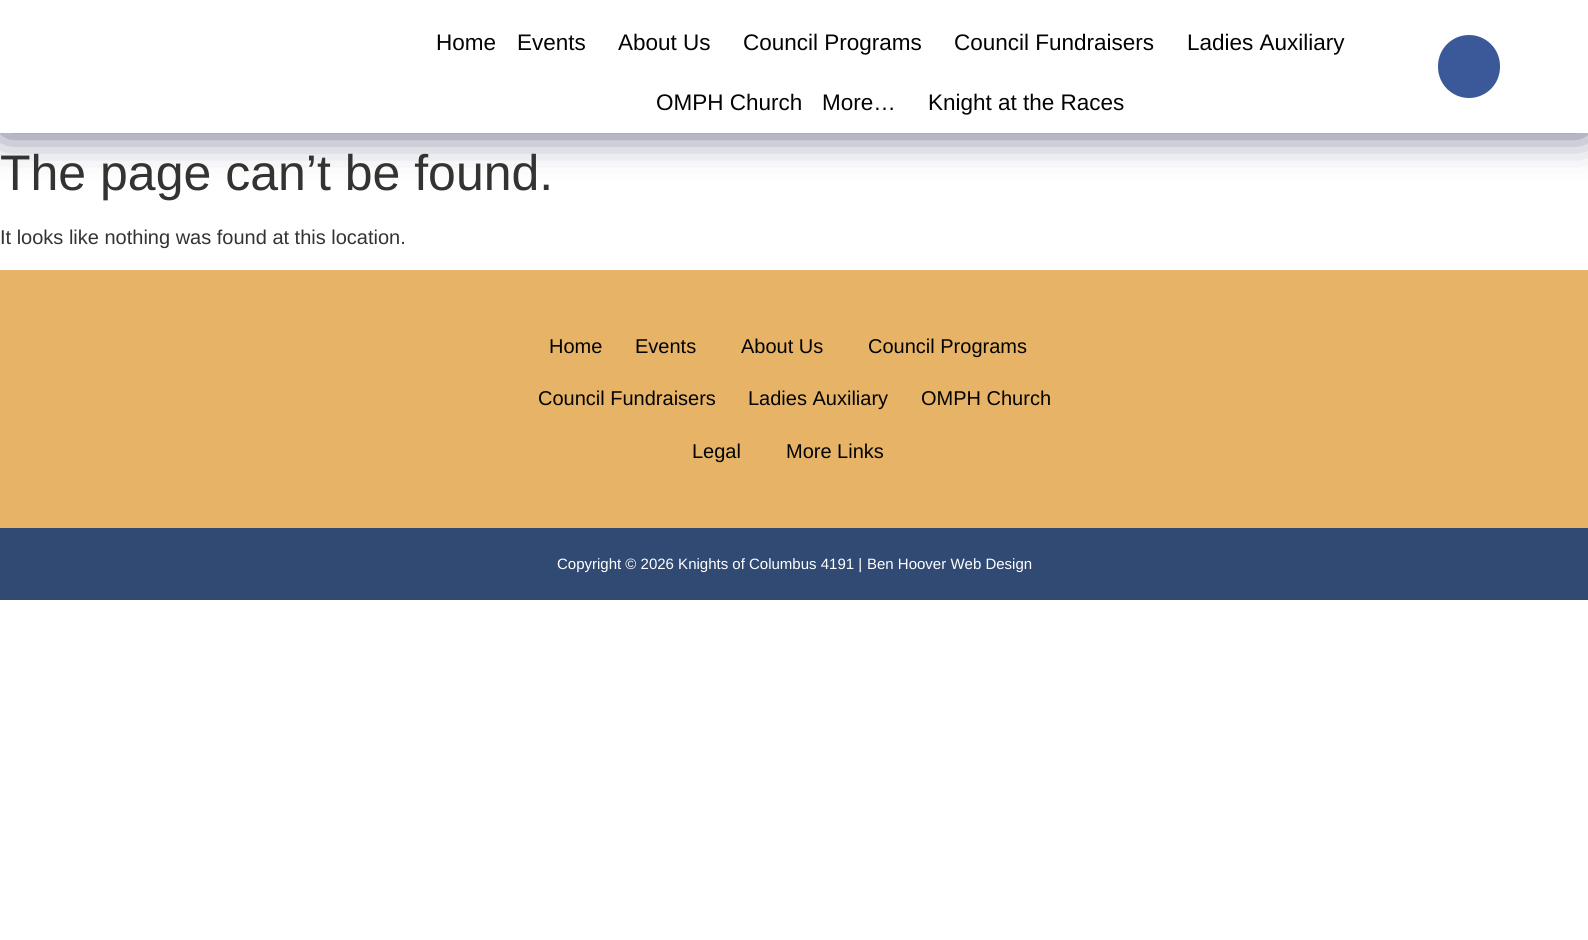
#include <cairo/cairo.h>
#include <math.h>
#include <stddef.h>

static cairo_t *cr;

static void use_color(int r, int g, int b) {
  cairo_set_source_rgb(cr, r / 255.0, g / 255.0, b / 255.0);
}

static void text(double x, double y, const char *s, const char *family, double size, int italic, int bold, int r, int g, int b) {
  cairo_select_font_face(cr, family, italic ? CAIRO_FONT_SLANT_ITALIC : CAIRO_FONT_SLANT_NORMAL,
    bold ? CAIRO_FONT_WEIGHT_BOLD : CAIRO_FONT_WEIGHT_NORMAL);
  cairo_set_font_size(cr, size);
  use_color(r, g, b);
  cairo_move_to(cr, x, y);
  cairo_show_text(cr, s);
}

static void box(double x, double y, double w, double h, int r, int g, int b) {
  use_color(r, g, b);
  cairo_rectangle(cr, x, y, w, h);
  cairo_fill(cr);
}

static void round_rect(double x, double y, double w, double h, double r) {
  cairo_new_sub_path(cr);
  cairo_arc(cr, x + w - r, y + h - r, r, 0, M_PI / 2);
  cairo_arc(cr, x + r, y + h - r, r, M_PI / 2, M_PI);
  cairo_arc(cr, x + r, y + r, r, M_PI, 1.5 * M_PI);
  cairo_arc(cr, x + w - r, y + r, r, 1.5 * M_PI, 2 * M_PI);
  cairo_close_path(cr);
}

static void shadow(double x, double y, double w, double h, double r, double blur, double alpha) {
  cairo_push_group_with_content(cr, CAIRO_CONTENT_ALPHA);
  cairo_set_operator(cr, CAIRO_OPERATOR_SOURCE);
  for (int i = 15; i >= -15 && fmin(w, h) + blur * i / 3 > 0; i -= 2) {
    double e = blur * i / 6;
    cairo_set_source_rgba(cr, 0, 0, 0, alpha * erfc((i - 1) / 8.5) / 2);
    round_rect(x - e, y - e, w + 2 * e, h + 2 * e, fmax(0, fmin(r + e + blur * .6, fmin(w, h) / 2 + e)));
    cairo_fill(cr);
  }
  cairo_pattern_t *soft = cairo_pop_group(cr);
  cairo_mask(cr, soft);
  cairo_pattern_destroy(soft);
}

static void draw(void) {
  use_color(255, 255, 255);
  cairo_paint(cr);
  cairo_save(cr);
  cairo_set_fill_rule(cr, CAIRO_FILL_RULE_EVEN_ODD);
  cairo_new_path(cr);
  cairo_move_to(cr, 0, 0);
  cairo_line_to(cr, 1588, 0);
  cairo_line_to(cr, 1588, 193);
  cairo_line_to(cr, 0, 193);
  cairo_close_path(cr);
  cairo_move_to(cr, 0, 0);
  cairo_line_to(cr, 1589, 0);
  cairo_line_to(cr, 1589, 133);
  cairo_line_to(cr, 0, 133);
  cairo_close_path(cr);
  cairo_clip(cr);
  use_color(56, 60, 101);
  shadow(3, 3, 1583, 127, 0, 20.5, 1);
  cairo_restore(cr);
  cairo_set_source_rgba(cr, 1, 1, 1, 0.12);
  cairo_rectangle(cr, 2, 132, 1585, 1);
  cairo_fill(cr);
  use_color(59, 89, 152);
  round_rect(1438, 35, 62, 63, 31);
  cairo_fill(cr);
  box(0, 270, 1588, 258, 230, 179, 103);
  box(0, 528, 1588, 72, 49, 74, 116);
  text(436, 50, "Home", "Liberation Sans", 22.5, 0, 0, 3, 3, 3);
  text(517, 50, "Events", "Liberation Sans", 22.5, 0, 0, 3, 3, 3);
  text(618, 50, "About Us", "Liberation Sans", 22.5, 0, 0, 3, 3, 3);
  text(743, 50, "Council Programs", "Liberation Sans", 22.5, 0, 0, 3, 3, 3);
  text(954, 50, "Council Fundraisers", "Liberation Sans", 22.5, 0, 0, 3, 3, 3);
  text(1187, 50, "Ladies Auxiliary", "Liberation Sans", 22.5, 0, 0, 3, 3, 3);
  text(656, 110, "OMPH Church", "Liberation Sans", 22.5, 0, 0, 3, 3, 3);
  text(822, 110, "More…", "Liberation Sans", 22.5, 0, 0, 3, 3, 3);
  text(928, 110, "Knight at the Races", "Liberation Sans", 22.5, 0, 0, 3, 3, 3);
  text(0, 190, "The page can’t be found.", "Liberation Sans", 50, 0, 0, 51, 51, 51);
  text(0, 244, "It looks like nothing was found at this location.", "Liberation Sans", 20, 0, 0, 51, 51, 51);
  text(549, 353, "Home", "Liberation Sans", 20, 0, 0, 3, 3, 3);
  text(635, 353, "Events", "Liberation Sans", 20, 0, 0, 3, 3, 3);
  text(741, 353, "About Us", "Liberation Sans", 20, 0, 0, 3, 3, 3);
  text(868, 353, "Council Programs", "Liberation Sans", 20, 0, 0, 3, 3, 3);
  text(538, 405, "Council Fundraisers", "Liberation Sans", 20, 0, 0, 3, 3, 3);
  text(748, 405, "Ladies Auxiliary", "Liberation Sans", 20, 0, 0, 3, 3, 3);
  text(921, 405, "OMPH Church", "Liberation Sans", 20, 0, 0, 3, 3, 3);
  text(692, 458, "Legal", "Liberation Sans", 20, 0, 0, 3, 3, 3);
  text(786, 458, "More Links", "Liberation Sans", 20, 0, 0, 3, 3, 3);
  text(557, 569, "Copyright © 2026 Knights of Columbus 4191 |", "Liberation Sans", 15, 0, 0, 255, 255, 255);
  text(867, 569, "Ben Hoover Web Design", "Liberation Sans", 15, 0, 0, 255, 255, 255);
}

int main(void) {
  cairo_surface_t *surface = cairo_image_surface_create(CAIRO_FORMAT_RGB24, 1588, 940);
  cr = cairo_create(surface);
  cairo_font_options_t *options = cairo_font_options_create();
  cairo_font_options_set_hint_metrics(options, CAIRO_HINT_METRICS_OFF);
  cairo_font_options_set_hint_style(options, CAIRO_HINT_STYLE_NONE);
  cairo_set_font_options(cr, options);
  cairo_set_miter_limit(cr, 4);
  draw();
  cairo_surface_write_to_png(surface, "out.png");
  cairo_font_options_destroy(options);
  cairo_destroy(cr);
  cairo_surface_destroy(surface);
  return 0;
}
